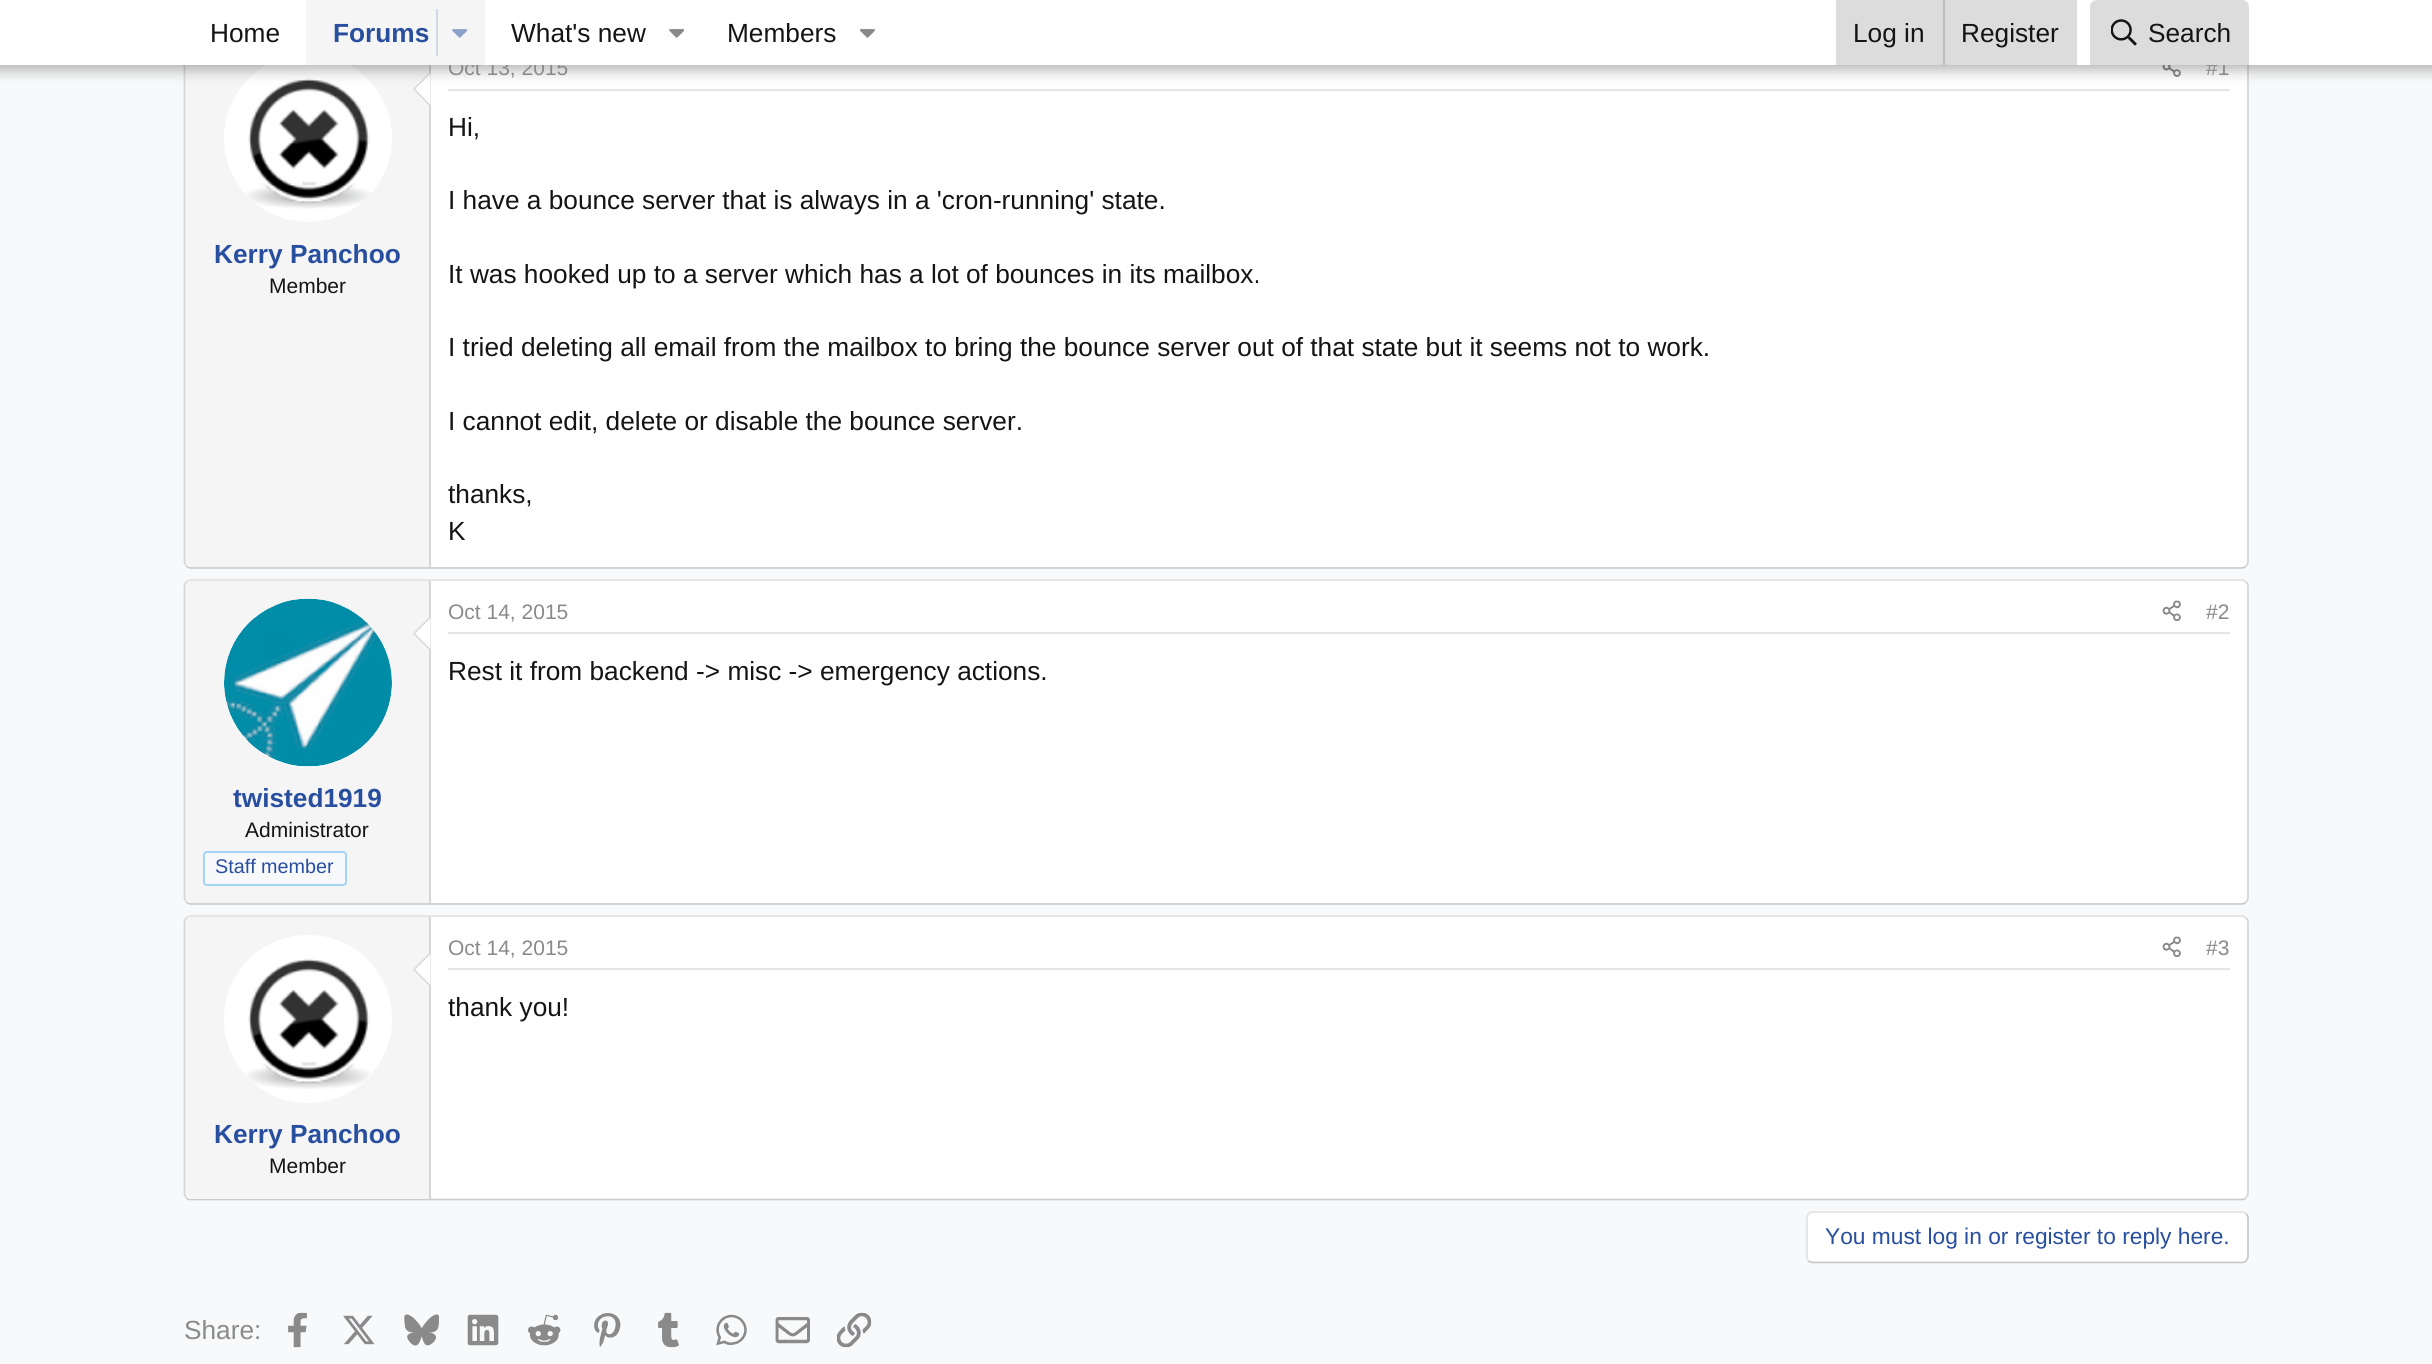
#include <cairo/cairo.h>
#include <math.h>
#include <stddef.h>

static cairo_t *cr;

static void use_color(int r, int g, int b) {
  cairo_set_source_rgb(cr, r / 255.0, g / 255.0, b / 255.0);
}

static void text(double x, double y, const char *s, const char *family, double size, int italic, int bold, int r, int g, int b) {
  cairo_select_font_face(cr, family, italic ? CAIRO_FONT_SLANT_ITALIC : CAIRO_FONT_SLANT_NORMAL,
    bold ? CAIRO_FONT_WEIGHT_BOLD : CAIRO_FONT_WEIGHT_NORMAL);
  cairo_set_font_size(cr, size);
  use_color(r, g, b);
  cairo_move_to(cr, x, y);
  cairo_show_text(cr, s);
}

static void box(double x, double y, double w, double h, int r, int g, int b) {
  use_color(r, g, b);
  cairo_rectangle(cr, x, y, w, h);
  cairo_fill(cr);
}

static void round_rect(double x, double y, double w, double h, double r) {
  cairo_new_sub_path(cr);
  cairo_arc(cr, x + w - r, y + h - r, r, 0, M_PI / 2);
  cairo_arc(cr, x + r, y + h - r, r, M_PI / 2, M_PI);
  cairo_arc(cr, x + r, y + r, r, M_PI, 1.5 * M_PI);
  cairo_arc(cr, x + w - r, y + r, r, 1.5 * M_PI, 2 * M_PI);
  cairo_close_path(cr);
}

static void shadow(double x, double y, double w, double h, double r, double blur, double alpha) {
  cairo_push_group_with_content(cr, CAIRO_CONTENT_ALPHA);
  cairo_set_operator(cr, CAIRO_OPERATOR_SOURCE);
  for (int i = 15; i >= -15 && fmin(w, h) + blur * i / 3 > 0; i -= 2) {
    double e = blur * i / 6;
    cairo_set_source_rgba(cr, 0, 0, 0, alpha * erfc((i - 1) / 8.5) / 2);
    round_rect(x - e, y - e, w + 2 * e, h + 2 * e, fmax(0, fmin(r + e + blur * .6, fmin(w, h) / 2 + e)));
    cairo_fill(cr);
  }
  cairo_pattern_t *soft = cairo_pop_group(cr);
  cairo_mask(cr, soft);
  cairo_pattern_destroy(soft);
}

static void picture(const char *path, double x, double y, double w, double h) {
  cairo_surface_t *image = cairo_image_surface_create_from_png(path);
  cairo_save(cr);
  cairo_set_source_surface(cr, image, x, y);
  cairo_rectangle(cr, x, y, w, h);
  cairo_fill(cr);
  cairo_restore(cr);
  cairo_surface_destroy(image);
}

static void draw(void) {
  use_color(248, 249, 250);
  cairo_paint(cr);
  use_color(255, 255, 255);
  round_rect(184, 35, 2065, 534, 7);
  cairo_fill(cr);
  cairo_new_path(cr);
  cairo_move_to(cr, 2246, 37.5);
  cairo_curve_to(cr, 2247, 39, 2248, 40.5, 2248, 42);
  cairo_line_to(cr, 2248, 562);
  cairo_curve_to(cr, 2248, 563.5, 2247, 565, 2246, 566);
  use_color(214, 214, 214);
  cairo_set_line_width(cr, 1.8);
  cairo_stroke(cr);
  cairo_new_path(cr);
  cairo_move_to(cr, 2246, 566);
  cairo_curve_to(cr, 2245, 567, 2243.5, 568, 2242, 568);
  cairo_line_to(cr, 191, 568);
  cairo_curve_to(cr, 189, 568, 187.5, 567, 186.5, 566);
  use_color(204, 204, 204);
  cairo_stroke(cr);
  cairo_new_path(cr);
  cairo_move_to(cr, 186.5, 566);
  cairo_curve_to(cr, 185.5, 565, 184.5, 563.5, 184.5, 562);
  cairo_line_to(cr, 184.5, 42);
  cairo_curve_to(cr, 184.5, 40.5, 185.5, 39, 186.5, 37.5);
  use_color(214, 214, 214);
  cairo_stroke(cr);
  use_color(245, 245, 245);
  cairo_new_path(cr);
  cairo_move_to(cr, 191, 37);
  cairo_line_to(cr, 431, 37);
  cairo_line_to(cr, 431, 567);
  cairo_line_to(cr, 191, 567);
  cairo_curve_to(cr, 188, 567, 186, 565, 186, 562);
  cairo_line_to(cr, 186, 42);
  cairo_curve_to(cr, 186, 39, 188, 37, 191, 37);
  cairo_close_path(cr);
  cairo_fill(cr);
  box(429, 65, 2, 502, 214, 214, 214);
  use_color(255, 255, 255);
  cairo_arc(cr, 308, 138, 84, 0, 2 * M_PI);
  cairo_fill(cr);
  picture("img_05.png", 246, 78, 125, 131);
  use_color(214, 214, 214);
  cairo_new_path(cr);
  cairo_move_to(cr, 430.5, 72);
  cairo_line_to(cr, 430.5, 107);
  cairo_line_to(cr, 413, 89);
  cairo_close_path(cr);
  cairo_fill(cr);
  use_color(255, 255, 255);
  cairo_new_path(cr);
  cairo_move_to(cr, 430.5, 73.5);
  cairo_line_to(cr, 430.5, 105);
  cairo_line_to(cr, 415, 89);
  cairo_close_path(cr);
  cairo_fill(cr);
  box(448, 89, 1782, 2, 229, 229, 229);
  picture("img_06.png", 2162, 65, 19, 12);
  use_color(0, 0, 0);
  shadow(-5, -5, 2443, 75, 0, 7, 0.3);
  use_color(255, 255, 255);
  round_rect(184, 579, 2065, 326, 7);
  cairo_fill(cr);
  cairo_new_path(cr);
  cairo_move_to(cr, 186.5, 582);
  cairo_curve_to(cr, 187.5, 581, 189, 580, 191, 580);
  cairo_line_to(cr, 2242, 580);
  cairo_curve_to(cr, 2243.5, 580, 2245, 581, 2246, 582);
  use_color(224, 224, 224);
  cairo_stroke(cr);
  cairo_new_path(cr);
  cairo_move_to(cr, 2246, 582);
  cairo_curve_to(cr, 2247, 583, 2248, 584.5, 2248, 586);
  cairo_line_to(cr, 2248, 898);
  cairo_curve_to(cr, 2248, 899.5, 2247, 901, 2246, 902);
  use_color(214, 214, 214);
  cairo_stroke(cr);
  cairo_new_path(cr);
  cairo_move_to(cr, 2246, 902);
  cairo_curve_to(cr, 2245, 903, 2243.5, 904, 2242, 904);
  cairo_line_to(cr, 191, 904);
  cairo_curve_to(cr, 189, 904, 187.5, 903, 186.5, 902);
  use_color(204, 204, 204);
  cairo_stroke(cr);
  cairo_new_path(cr);
  cairo_move_to(cr, 186.5, 902);
  cairo_curve_to(cr, 185.5, 901, 184.5, 899.5, 184.5, 898);
  cairo_line_to(cr, 184.5, 586);
  cairo_curve_to(cr, 184.5, 584.5, 185.5, 583, 186.5, 582);
  use_color(214, 214, 214);
  cairo_stroke(cr);
  box(448, 632, 1782, 2, 229, 229, 229);
  picture("img_07.png", 2162, 600, 19, 21);
  use_color(245, 245, 245);
  cairo_new_path(cr);
  cairo_move_to(cr, 191, 581);
  cairo_line_to(cr, 431, 581);
  cairo_line_to(cr, 431, 903);
  cairo_line_to(cr, 191, 903);
  cairo_curve_to(cr, 188, 903, 186, 901, 186, 898);
  cairo_line_to(cr, 186, 586);
  cairo_curve_to(cr, 186, 583, 188, 581, 191, 581);
  cairo_close_path(cr);
  cairo_fill(cr);
  box(429, 581, 2, 322, 214, 214, 214);
  use_color(255, 255, 255);
  cairo_arc(cr, 308, 683, 84, 0, 2 * M_PI);
  cairo_fill(cr);
  picture("img_08.png", 224, 598, 168, 169);
  use_color(214, 214, 214);
  cairo_new_path(cr);
  cairo_move_to(cr, 430.5, 616);
  cairo_line_to(cr, 430.5, 651);
  cairo_line_to(cr, 413, 633.5);
  cairo_close_path(cr);
  cairo_fill(cr);
  use_color(255, 255, 255);
  cairo_new_path(cr);
  cairo_move_to(cr, 430.5, 618);
  cairo_line_to(cr, 430.5, 649);
  cairo_line_to(cr, 415, 633.5);
  cairo_close_path(cr);
  cairo_fill(cr);
  use_color(248, 249, 250);
  round_rect(204, 852, 142, 33, 3);
  cairo_fill_preserve(cr);
  use_color(163, 212, 245);
  cairo_set_line_width(cr, 2);
  cairo_stroke(cr);
  use_color(255, 255, 255);
  round_rect(184, 915, 2065, 286, 7);
  cairo_fill(cr);
  cairo_new_path(cr);
  cairo_move_to(cr, 186.5, 918);
  cairo_curve_to(cr, 187.5, 917, 189, 916, 191, 916);
  cairo_line_to(cr, 2242, 916);
  cairo_curve_to(cr, 2243.5, 916, 2245, 917, 2246, 918);
  use_color(224, 224, 224);
  cairo_set_line_width(cr, 1.8);
  cairo_stroke(cr);
  cairo_new_path(cr);
  cairo_move_to(cr, 2246, 918);
  cairo_curve_to(cr, 2247, 919, 2248, 920.5, 2248, 922);
  cairo_line_to(cr, 2248, 1193.5);
  cairo_curve_to(cr, 2248, 1195, 2247, 1196.5, 2246, 1198);
  use_color(214, 214, 214);
  cairo_stroke(cr);
  cairo_new_path(cr);
  cairo_move_to(cr, 2246, 1198);
  cairo_curve_to(cr, 2245, 1199, 2243.5, 1199.5, 2242, 1199.5);
  cairo_line_to(cr, 191, 1199.5);
  cairo_curve_to(cr, 189, 1199.5, 187.5, 1199, 186.5, 1198);
  use_color(204, 204, 204);
  cairo_stroke(cr);
  cairo_new_path(cr);
  cairo_move_to(cr, 186.5, 1198);
  cairo_curve_to(cr, 185.5, 1196.5, 184.5, 1195, 184.5, 1193.5);
  cairo_line_to(cr, 184.5, 922);
  cairo_curve_to(cr, 184.5, 920.5, 185.5, 919, 186.5, 918);
  use_color(214, 214, 214);
  cairo_stroke(cr);
  box(448, 968, 1782, 2, 229, 229, 229);
  picture("img_09.png", 2162, 936, 19, 21);
  use_color(245, 245, 245);
  cairo_new_path(cr);
  cairo_move_to(cr, 191, 917);
  cairo_line_to(cr, 431, 917);
  cairo_line_to(cr, 431, 1199);
  cairo_line_to(cr, 191, 1199);
  cairo_curve_to(cr, 188, 1199, 186, 1197, 186, 1194);
  cairo_line_to(cr, 186, 922);
  cairo_curve_to(cr, 186, 919, 188, 917, 191, 917);
  cairo_close_path(cr);
  cairo_fill(cr);
  box(429, 917, 2, 282, 214, 214, 214);
  use_color(255, 255, 255);
  cairo_arc(cr, 308, 1019, 84, 0, 2 * M_PI);
  cairo_fill(cr);
  picture("img_10.png", 246, 958, 125, 131);
  use_color(214, 214, 214);
  cairo_new_path(cr);
  cairo_move_to(cr, 430.5, 952);
  cairo_line_to(cr, 430.5, 987);
  cairo_line_to(cr, 413, 969.5);
  cairo_close_path(cr);
  cairo_fill(cr);
  use_color(255, 255, 255);
  cairo_new_path(cr);
  cairo_move_to(cr, 430.5, 954);
  cairo_line_to(cr, 430.5, 985);
  cairo_line_to(cr, 415, 969.5);
  cairo_close_path(cr);
  cairo_fill(cr);
  round_rect(1806, 1211, 443, 53, 7);
  cairo_fill(cr);
  cairo_new_path(cr);
  cairo_move_to(cr, 2246, 1213.5);
  cairo_curve_to(cr, 2247, 1215, 2248, 1216.5, 2248, 1218);
  cairo_line_to(cr, 2248, 1256.5);
  cairo_curve_to(cr, 2248, 1258, 2247, 1259.5, 2246, 1261);
  cairo_curve_to(cr, 2245, 1262, 2243.5, 1262.5, 2242, 1262.5);
  cairo_line_to(cr, 1813, 1262.5);
  cairo_curve_to(cr, 1811.5, 1262.5, 1810, 1262, 1808.5, 1261);
  use_color(201, 201, 201);
  cairo_stroke(cr);
  cairo_new_path(cr);
  cairo_move_to(cr, 1808.5, 1261);
  cairo_curve_to(cr, 1807.5, 1259.5, 1807, 1258, 1807, 1256.5);
  cairo_line_to(cr, 1807, 1218);
  cairo_curve_to(cr, 1807, 1216.5, 1807.5, 1215, 1808.5, 1213.5);
  cairo_curve_to(cr, 1810, 1212.5, 1811.5, 1212, 1813, 1212);
  cairo_line_to(cr, 2242, 1212);
  cairo_curve_to(cr, 2243.5, 1212, 2245, 1212.5, 2246, 1213.5);
  use_color(227, 227, 227);
  cairo_stroke(cr);
  picture("img_11.png", 288, 1312, 19, 36);
  picture("img_12.png", 343, 1315, 32, 30);
  picture("img_13.png", 404, 1314, 35, 32);
  picture("img_14.png", 467, 1314, 32, 32);
  picture("img_15.png", 528, 1314, 33, 32);
  picture("img_16.png", 594, 1313, 27, 34);
  picture("img_17.png", 658, 1312, 21, 36);
  picture("img_18.png", 716, 1314, 31, 32);
  picture("img_19.png", 775, 1317, 35, 27);
  picture("img_20.png", 836, 1312, 36, 36);
  text(214, 263, "Kerry Panchoo", "Liberation Sans", 26.25, 0, 1, 40, 78, 159);
  text(269, 293, "Member", "Liberation Sans", 21, 0, 0, 20, 20, 20);
  text(448, 75, "Oct 13, 2015", "Liberation Sans", 21, 0, 0, 138, 138, 138);
  text(2206, 75, "#1", "Liberation Sans", 21, 0, 0, 138, 138, 138);
  box(0, 0, 2432, 65, 255, 255, 255);
  use_color(220, 220, 220);
  cairo_new_path(cr);
  cairo_move_to(cr, 2097, 0);
  cairo_line_to(cr, 2242, 0);
  cairo_curve_to(cr, 2246, 0, 2249, 3, 2249, 7);
  cairo_line_to(cr, 2249, 65);
  cairo_line_to(cr, 2090, 65);
  cairo_line_to(cr, 2090, 7);
  cairo_curve_to(cr, 2090, 3, 2093, 0, 2097, 0);
  cairo_close_path(cr);
  cairo_fill(cr);
  picture("img_04.png", 2111, 19, 26, 27);
  picture("img_03.png", 859, 29, 16, 9);
  picture("img_02.png", 669, 29, 15, 9);
  box(306, 0, 179, 65, 245, 245, 245);
  picture("img_01.png", 452, 29, 15, 9);
  box(436, 9, 2, 47, 209, 216, 230);
  text(727, 42, "Members", "Liberation Sans", 26.25, 0, 0, 20, 20, 20);
  text(511, 42, "What's new", "Liberation Sans", 26.25, 0, 0, 20, 20, 20);
  text(333, 42, "Forums", "Liberation Sans", 26.25, 0, 1, 40, 78, 159);
  text(210, 42, "Home", "Liberation Sans", 26.25, 0, 0, 20, 20, 20);
  text(2148, 42, "Search", "Liberation Sans", 26.25, 0, 0, 20, 20, 20);
  box(1836, 0, 241, 65, 220, 220, 220);
  text(1961, 42, "Register", "Liberation Sans", 26.25, 0, 0, 20, 20, 20);
  box(1943, 0, 2, 65, 190, 190, 190);
  text(1853, 42, "Log in", "Liberation Sans", 26.25, 0, 0, 20, 20, 20);
  text(448, 136, "Hi,", "Liberation Sans", 26.25, 0, 0, 20, 20, 20);
  text(448, 209, "I have a bounce server that is always in a 'cron-running' state.", "Liberation Sans", 26.25, 0, 0, 20, 20, 20);
  text(448, 283, "It was hooked up to a server which has a lot of bounces in its mailbox.", "Liberation Sans", 26.25, 0, 0, 20, 20, 20);
  text(448, 356, "I tried deleting all email from the mailbox to bring the bounce server out of that state but it seems not to work.", "Liberation Sans", 26.25, 0, 0, 20, 20, 20);
  text(448, 430, "I cannot edit, delete or disable the bounce server.", "Liberation Sans", 26.25, 0, 0, 20, 20, 20);
  text(448, 503, "thanks,", "Liberation Sans", 26.25, 0, 0, 20, 20, 20);
  text(448, 540, "K", "Liberation Sans", 26.25, 0, 0, 20, 20, 20);
  text(448, 619, "Oct 14, 2015", "Liberation Sans", 21, 0, 0, 138, 138, 138);
  text(2206, 619, "#2", "Liberation Sans", 21, 0, 0, 138, 138, 138);
  text(448, 680, "Rest it from backend -> misc -> emergency actions.", "Liberation Sans", 26.25, 0, 0, 20, 20, 20);
  text(233, 807, "twisted1919", "Liberation Sans", 26.25, 0, 1, 40, 78, 159);
  text(245, 837, "Administrator", "Liberation Sans", 21, 0, 0, 20, 20, 20);
  text(215, 873, "Staff member", "Liberation Sans", 19.75, 0, 0, 40, 78, 159);
  text(448, 955, "Oct 14, 2015", "Liberation Sans", 21, 0, 0, 138, 138, 138);
  text(2206, 955, "#3", "Liberation Sans", 21, 0, 0, 138, 138, 138);
  text(448, 1016, "thank you!", "Liberation Sans", 26.25, 0, 0, 20, 20, 20);
  text(214, 1143, "Kerry Panchoo", "Liberation Sans", 26.25, 0, 1, 40, 78, 159);
  text(269, 1173, "Member", "Liberation Sans", 21, 0, 0, 20, 20, 20);
  text(1825, 1244, "You must log in or register to reply here.", "Liberation Sans", 22.75, 0, 0, 40, 78, 159);
  text(184, 1339, "Share:", "Liberation Sans", 26.25, 0, 0, 138, 138, 138);
}

int main(void) {
  cairo_surface_t *surface = cairo_image_surface_create(CAIRO_FORMAT_RGB24, 2432, 1364);
  cr = cairo_create(surface);
  cairo_font_options_t *options = cairo_font_options_create();
  cairo_font_options_set_hint_metrics(options, CAIRO_HINT_METRICS_OFF);
  cairo_font_options_set_hint_style(options, CAIRO_HINT_STYLE_NONE);
  cairo_set_font_options(cr, options);
  cairo_set_miter_limit(cr, 4);
  draw();
  cairo_surface_write_to_png(surface, "out.png");
  cairo_font_options_destroy(options);
  cairo_destroy(cr);
  cairo_surface_destroy(surface);
  return 0;
}
